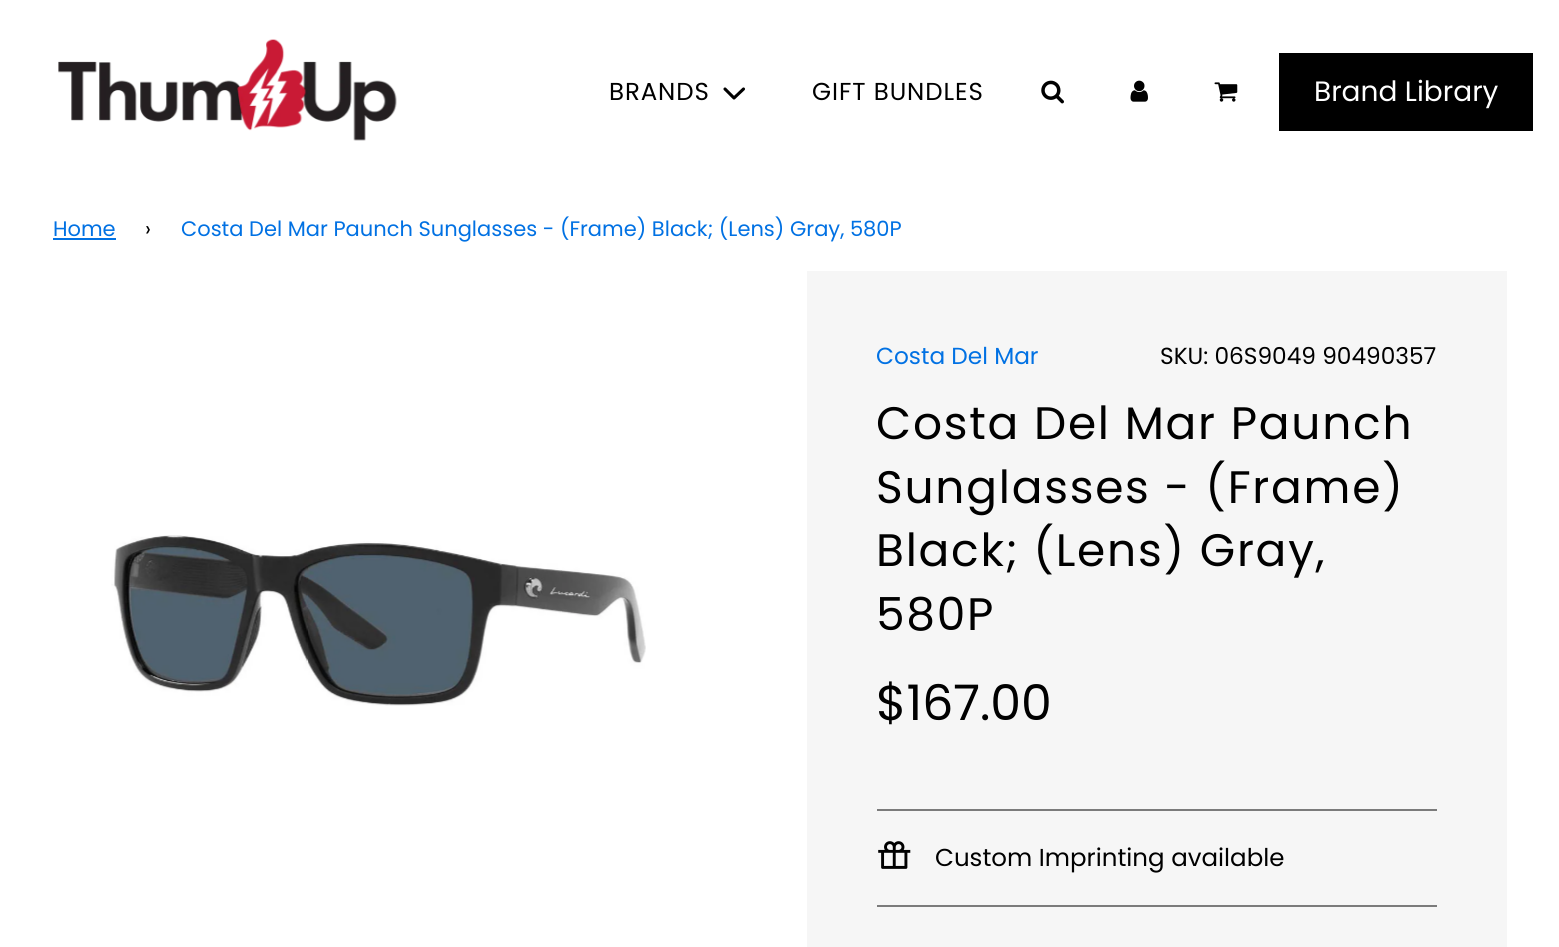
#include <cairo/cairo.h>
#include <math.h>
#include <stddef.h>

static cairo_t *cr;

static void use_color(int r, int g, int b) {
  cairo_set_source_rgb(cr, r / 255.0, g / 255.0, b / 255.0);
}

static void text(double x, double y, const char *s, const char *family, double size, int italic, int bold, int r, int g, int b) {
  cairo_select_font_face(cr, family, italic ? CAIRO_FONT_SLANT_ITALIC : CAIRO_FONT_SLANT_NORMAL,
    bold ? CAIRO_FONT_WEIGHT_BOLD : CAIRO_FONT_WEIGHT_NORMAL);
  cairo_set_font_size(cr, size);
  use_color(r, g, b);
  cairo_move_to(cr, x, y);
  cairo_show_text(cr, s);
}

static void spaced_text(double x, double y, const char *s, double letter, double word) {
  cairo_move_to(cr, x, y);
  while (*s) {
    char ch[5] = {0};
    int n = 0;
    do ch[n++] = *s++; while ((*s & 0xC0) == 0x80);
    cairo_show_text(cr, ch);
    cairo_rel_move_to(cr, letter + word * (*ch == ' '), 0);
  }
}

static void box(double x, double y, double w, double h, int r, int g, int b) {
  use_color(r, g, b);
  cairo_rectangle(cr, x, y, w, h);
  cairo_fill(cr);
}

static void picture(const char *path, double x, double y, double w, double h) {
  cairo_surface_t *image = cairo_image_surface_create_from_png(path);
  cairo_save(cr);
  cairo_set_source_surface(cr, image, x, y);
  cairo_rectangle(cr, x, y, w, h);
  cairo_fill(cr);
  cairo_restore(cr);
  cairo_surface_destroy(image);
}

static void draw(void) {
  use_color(255, 255, 255);
  cairo_paint(cr);
  picture("img_01.png", 58, 39, 339, 102);
  cairo_new_path(cr);
  cairo_move_to(cr, 725, 89);
  cairo_line_to(cr, 734, 98);
  cairo_line_to(cr, 743.5, 89);
  use_color(0, 0, 0);
  cairo_set_line_width(cr, 3.1);
  cairo_set_line_cap(cr, CAIRO_LINE_CAP_ROUND);
  cairo_set_line_join(cr, CAIRO_LINE_JOIN_ROUND);
  cairo_stroke(cr);
  picture("img_02.png", 1041, 80, 23, 24);
  picture("img_03.png", 1130, 80, 18, 22);
  picture("img_04.png", 1214, 82, 24, 20);
  box(1279, 53, 254, 78, 0, 0, 0);
  box(53, 238, 63, 2, 1, 113, 227);
  picture("img_05.png", 111, 535, 535, 171);
  box(807, 271, 700, 676, 246, 246, 246);
  box(877, 809, 560, 2, 123, 123, 123);
  box(877, 905, 560, 2, 123, 123, 123);
  picture("img_06.png", 878, 841, 33, 28);
  cairo_select_font_face(cr, "Poppins", CAIRO_FONT_SLANT_NORMAL, CAIRO_FONT_WEIGHT_NORMAL);
  cairo_set_font_size(cr, 24.5);
  use_color(0, 0, 0);
  spaced_text(609, 100, "BRANDS", 0.9, 0);
  spaced_text(812, 100, "GIFT BUNDLES", 0.9, 0);
  text(1314, 101, "Brand Library", "Poppins", 28, 0, 0, 255, 255, 255);
  text(53, 236, "Home", "Poppins", 21, 0, 0, 1, 113, 227);
  text(145, 236, "›", "Poppins", 21, 0, 0, 0, 0, 0);
  text(181, 236, "Costa Del Mar Paunch Sunglasses - (Frame) Black; (Lens) Gray, 580P", "Poppins", 21, 0, 0, 1, 113, 227);
  text(876, 364, "Costa Del Mar", "Poppins", 23.25, 0, 0, 1, 113, 227);
  text(1160, 364, "SKU: 06S9049 90490357", "Poppins", 23.25, 0, 0, 0, 0, 0);
  cairo_set_font_size(cr, 45.5);
  spaced_text(876, 439, "Costa Del Mar Paunch", 1.75, 0);
  spaced_text(876, 503, "Sunglasses - (Frame)", 1.75, 0);
  spaced_text(876, 566, "Black; (Lens) Gray,", 1.75, 0);
  spaced_text(876, 630, "580P", 1.75, 0);
  text(876, 720, "$167.00", "Poppins", 49, 0, 0, 0, 0, 0);
  text(935, 866, "Custom Imprinting available", "Poppins", 24.5, 0, 0, 0, 0, 0);
}

int main(void) {
  cairo_surface_t *surface = cairo_image_surface_create(CAIRO_FORMAT_RGB24, 1559, 947);
  cr = cairo_create(surface);
  cairo_font_options_t *options = cairo_font_options_create();
  cairo_font_options_set_hint_metrics(options, CAIRO_HINT_METRICS_OFF);
  cairo_font_options_set_hint_style(options, CAIRO_HINT_STYLE_NONE);
  cairo_set_font_options(cr, options);
  cairo_set_miter_limit(cr, 4);
  draw();
  cairo_surface_write_to_png(surface, "out.png");
  cairo_font_options_destroy(options);
  cairo_destroy(cr);
  cairo_surface_destroy(surface);
  return 0;
}
